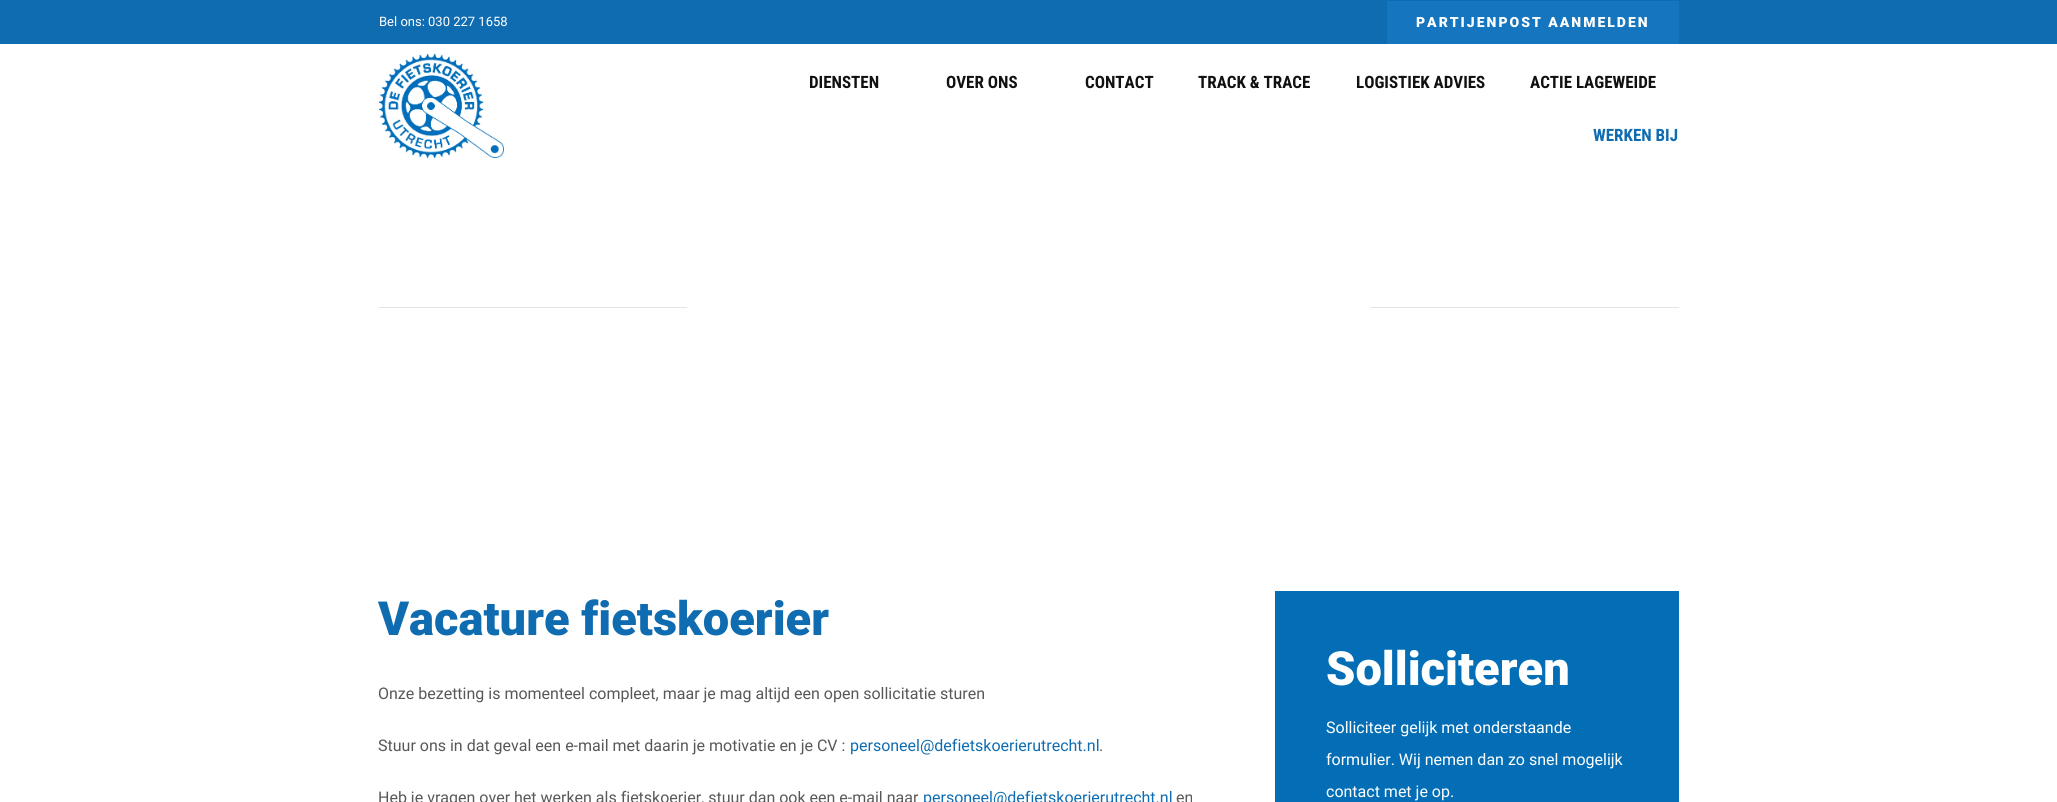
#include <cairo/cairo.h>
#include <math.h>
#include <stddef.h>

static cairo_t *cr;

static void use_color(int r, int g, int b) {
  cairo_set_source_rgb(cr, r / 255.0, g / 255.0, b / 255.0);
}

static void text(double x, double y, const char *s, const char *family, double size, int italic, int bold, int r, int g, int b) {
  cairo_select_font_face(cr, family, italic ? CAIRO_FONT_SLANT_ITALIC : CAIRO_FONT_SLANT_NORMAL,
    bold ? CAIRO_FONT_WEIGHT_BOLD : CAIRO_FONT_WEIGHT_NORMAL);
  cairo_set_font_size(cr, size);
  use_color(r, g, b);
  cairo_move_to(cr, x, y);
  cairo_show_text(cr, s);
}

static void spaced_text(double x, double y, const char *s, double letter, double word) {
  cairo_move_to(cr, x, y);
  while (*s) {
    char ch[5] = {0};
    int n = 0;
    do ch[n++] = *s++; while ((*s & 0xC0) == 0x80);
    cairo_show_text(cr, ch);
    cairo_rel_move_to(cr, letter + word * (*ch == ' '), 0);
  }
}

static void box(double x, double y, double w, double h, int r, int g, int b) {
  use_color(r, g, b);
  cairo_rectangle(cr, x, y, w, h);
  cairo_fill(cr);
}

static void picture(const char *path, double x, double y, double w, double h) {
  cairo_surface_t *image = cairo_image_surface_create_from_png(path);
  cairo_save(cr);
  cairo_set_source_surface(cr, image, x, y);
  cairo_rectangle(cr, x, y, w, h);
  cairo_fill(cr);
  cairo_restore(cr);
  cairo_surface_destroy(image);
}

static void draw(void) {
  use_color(255, 255, 255);
  cairo_paint(cr);
  box(0, 0, 2057, 44, 15, 108, 177);
  box(1387, 1, 292, 43, 22, 117, 191);
  picture("img_01.png", 379, 54, 125, 104);
  box(379, 307, 308, 1, 229, 229, 229);
  box(1370, 307, 309, 1, 229, 229, 229);
  box(1275, 591, 404, 211, 3, 110, 182);
  text(379, 26, "Bel ons: 030 227 1658", "Roboto", 13, 0, 0, 255, 255, 255);
  cairo_select_font_face(cr, "Roboto Black", CAIRO_FONT_SLANT_NORMAL, CAIRO_FONT_WEIGHT_NORMAL);
  cairo_set_font_size(cr, 14);
  spaced_text(1416, 27, "PARTIJENPOST AANMELDEN", 2, 0);
  text(809, 88, "DIENSTEN", "Roboto Condensed", 17, 0, 1, 17, 17, 17);
  text(946, 88, "OVER ONS", "Roboto Condensed", 17, 0, 1, 17, 17, 17);
  text(1085, 88, "CONTACT", "Roboto Condensed", 17, 0, 1, 17, 17, 17);
  text(1198, 88, "TRACK & TRACE", "Roboto Condensed", 17, 0, 1, 17, 17, 17);
  text(1356, 88, "LOGISTIEK ADVIES", "Roboto Condensed", 17, 0, 1, 17, 17, 17);
  text(1530, 88, "ACTIE LAGEWEIDE", "Roboto Condensed", 17, 0, 1, 17, 17, 17);
  text(1593, 141, "WERKEN BIJ", "Roboto Condensed", 17, 0, 1, 15, 108, 177);
  text(378, 635, "Vacature fietskoerier", "Roboto Black", 47, 0, 0, 15, 108, 177);
  text(378, 699, "Onze bezetting is momenteel compleet, maar je mag altijd een open sollicitatie sturen", "Roboto", 16, 0, 0, 88, 88, 88);
  text(378, 751, "Stuur ons in dat geval een e-mail met daarin je motivatie en je CV :", "Roboto", 16, 0, 0, 88, 88, 88);
  text(850, 751, "personeel@defietskoerierutrecht.nl", "Roboto", 16, 0, 0, 15, 108, 177);
  text(1099, 751, ".", "Roboto", 16, 0, 0, 88, 88, 88);
  text(378, 803, "Heb je vragen over het werken als fietskoerier, stuur dan ook een e-mail naar", "Roboto", 16, 0, 0, 88, 88, 88);
  text(923, 803, "personeel@defietskoerierutrecht.nl", "Roboto", 16, 0, 0, 15, 108, 177);
  text(1176, 803, "en", "Roboto", 16, 0, 0, 88, 88, 88);
  text(1326, 685, "Solliciteren", "Roboto Black", 47, 0, 0, 255, 255, 255);
  text(1326, 733, "Solliciteer gelijk met onderstaande", "Roboto", 16, 0, 0, 255, 255, 255);
  text(1326, 765, "formulier. Wij nemen dan zo snel mogelijk", "Roboto", 16, 0, 0, 255, 255, 255);
  text(1326, 797, "contact met je op.", "Roboto", 16, 0, 0, 255, 255, 255);
}

int main(void) {
  cairo_surface_t *surface = cairo_image_surface_create(CAIRO_FORMAT_RGB24, 2057, 802);
  cr = cairo_create(surface);
  cairo_font_options_t *options = cairo_font_options_create();
  cairo_font_options_set_hint_metrics(options, CAIRO_HINT_METRICS_OFF);
  cairo_font_options_set_hint_style(options, CAIRO_HINT_STYLE_NONE);
  cairo_set_font_options(cr, options);
  cairo_set_miter_limit(cr, 4);
  draw();
  cairo_surface_write_to_png(surface, "out.png");
  cairo_font_options_destroy(options);
  cairo_destroy(cr);
  cairo_surface_destroy(surface);
  return 0;
}
